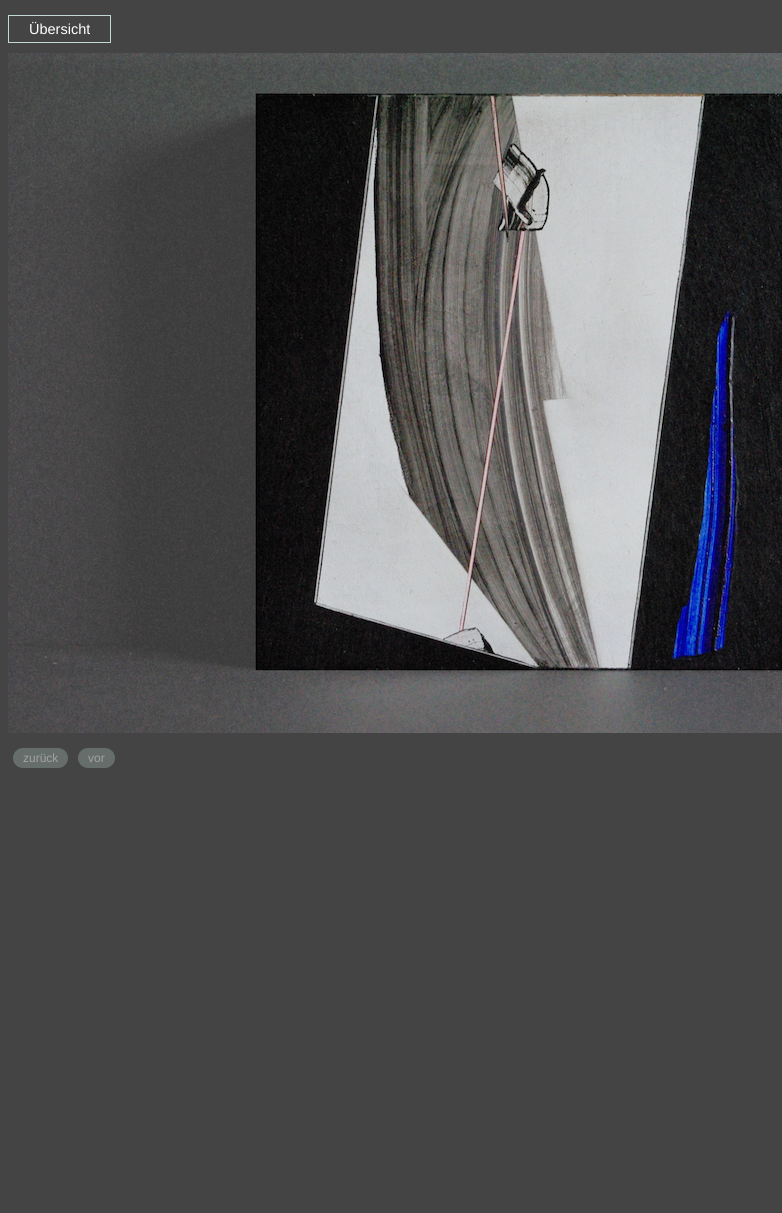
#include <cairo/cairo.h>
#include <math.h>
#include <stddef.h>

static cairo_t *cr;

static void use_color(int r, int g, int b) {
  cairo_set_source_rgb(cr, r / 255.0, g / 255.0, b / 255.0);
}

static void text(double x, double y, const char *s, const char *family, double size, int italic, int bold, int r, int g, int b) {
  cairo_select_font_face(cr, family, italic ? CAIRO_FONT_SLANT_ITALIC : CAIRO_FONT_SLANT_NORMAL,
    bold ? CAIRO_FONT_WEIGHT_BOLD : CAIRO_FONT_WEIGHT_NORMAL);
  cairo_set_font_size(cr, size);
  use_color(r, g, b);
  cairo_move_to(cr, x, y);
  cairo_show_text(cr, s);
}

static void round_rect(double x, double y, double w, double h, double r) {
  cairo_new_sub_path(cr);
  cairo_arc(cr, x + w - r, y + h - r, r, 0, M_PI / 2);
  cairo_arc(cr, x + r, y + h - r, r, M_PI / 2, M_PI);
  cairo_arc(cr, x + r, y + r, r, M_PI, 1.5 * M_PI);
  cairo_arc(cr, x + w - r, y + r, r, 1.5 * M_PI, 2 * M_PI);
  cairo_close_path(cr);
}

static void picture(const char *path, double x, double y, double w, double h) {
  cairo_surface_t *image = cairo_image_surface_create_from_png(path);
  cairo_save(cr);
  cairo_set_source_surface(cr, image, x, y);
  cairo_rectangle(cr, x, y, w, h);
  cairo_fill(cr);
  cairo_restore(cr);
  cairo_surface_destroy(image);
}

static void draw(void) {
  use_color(68, 68, 68);
  cairo_paint(cr);
  cairo_rectangle(cr, 8.5, 15.5, 102, 27);
  use_color(196, 215, 215);
  cairo_set_line_width(cr, 1);
  cairo_stroke(cr);
  picture("img_01.png", 8, 53, 774, 680);
  use_color(101, 110, 107);
  round_rect(13, 748, 55, 20, 10);
  cairo_fill(cr);
  round_rect(78, 748, 37, 20, 10);
  cairo_fill(cr);
  text(29, 34, "Übersicht", "Liberation Sans", 14.5, 0, 0, 255, 255, 255);
  text(23, 762, "zurück", "Liberation Sans", 12, 0, 0, 162, 162, 162);
  text(88, 762, "vor", "Liberation Sans", 12, 0, 0, 162, 162, 162);
}

int main(void) {
  cairo_surface_t *surface = cairo_image_surface_create(CAIRO_FORMAT_RGB24, 782, 1213);
  cr = cairo_create(surface);
  cairo_font_options_t *options = cairo_font_options_create();
  cairo_font_options_set_hint_metrics(options, CAIRO_HINT_METRICS_OFF);
  cairo_font_options_set_hint_style(options, CAIRO_HINT_STYLE_NONE);
  cairo_set_font_options(cr, options);
  cairo_set_miter_limit(cr, 4);
  draw();
  cairo_surface_write_to_png(surface, "out.png");
  cairo_font_options_destroy(options);
  cairo_destroy(cr);
  cairo_surface_destroy(surface);
  return 0;
}
